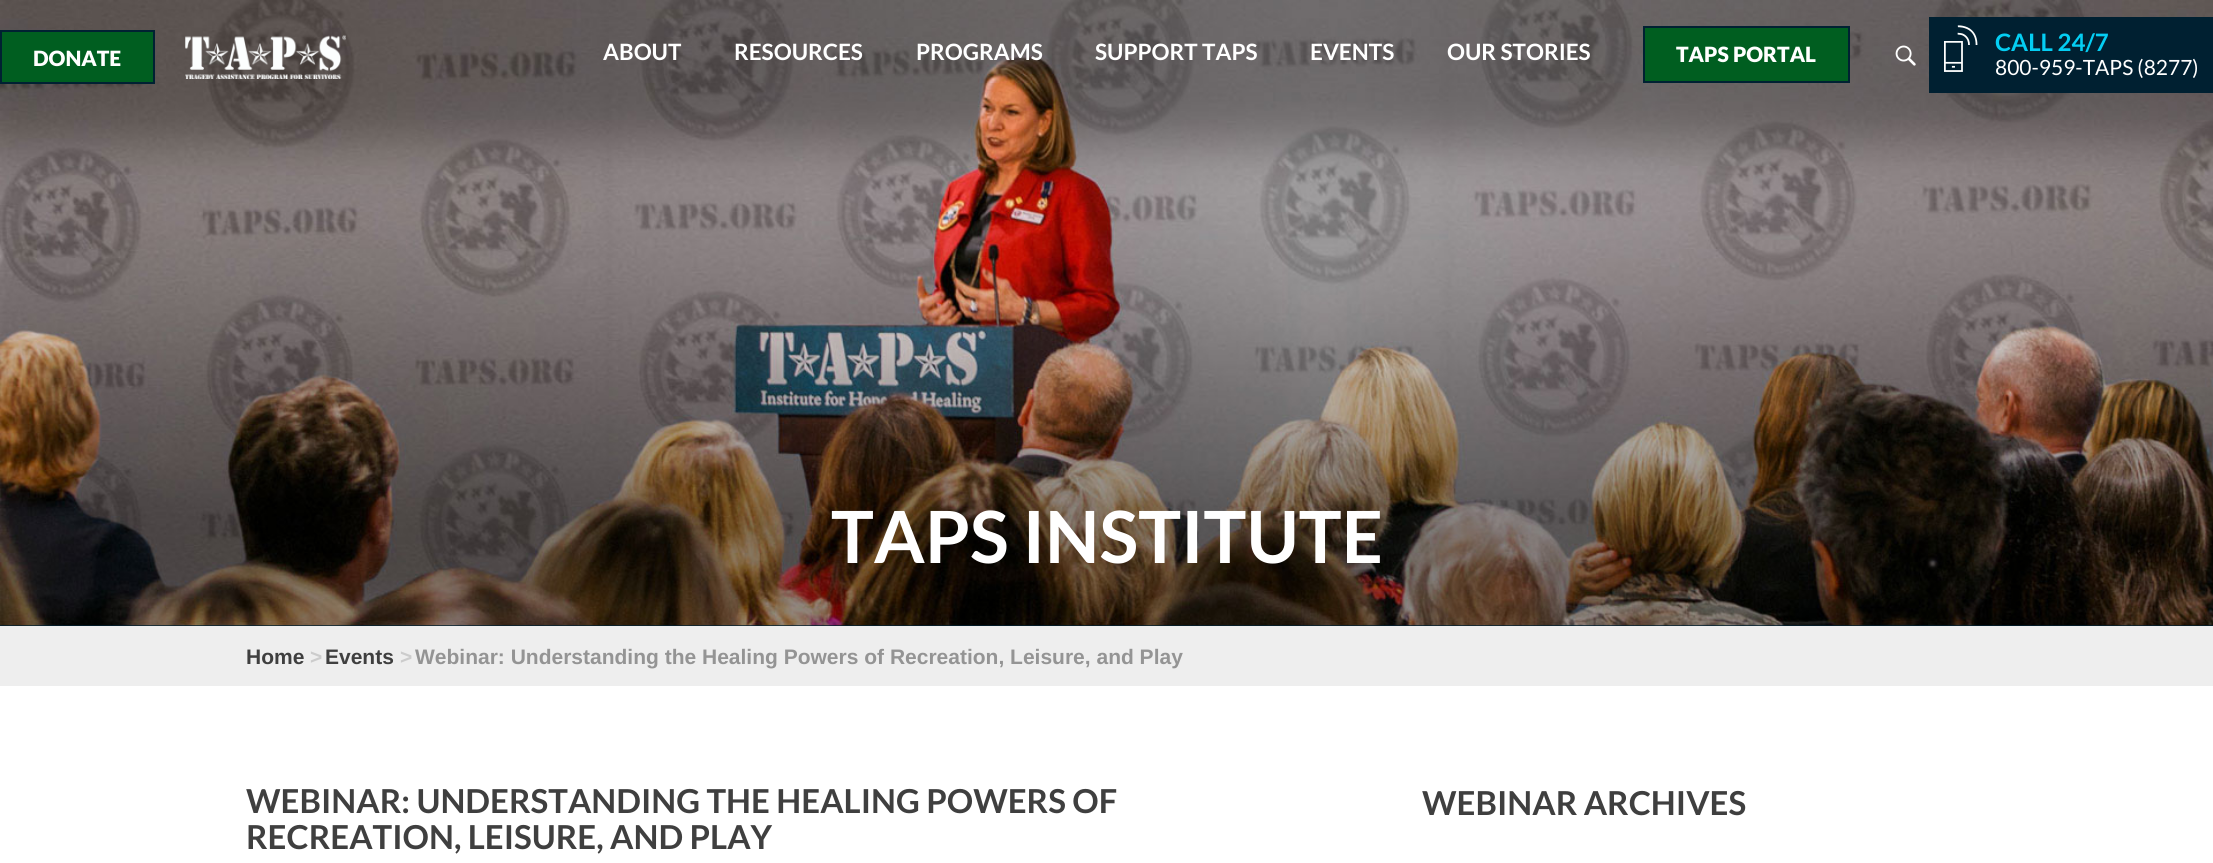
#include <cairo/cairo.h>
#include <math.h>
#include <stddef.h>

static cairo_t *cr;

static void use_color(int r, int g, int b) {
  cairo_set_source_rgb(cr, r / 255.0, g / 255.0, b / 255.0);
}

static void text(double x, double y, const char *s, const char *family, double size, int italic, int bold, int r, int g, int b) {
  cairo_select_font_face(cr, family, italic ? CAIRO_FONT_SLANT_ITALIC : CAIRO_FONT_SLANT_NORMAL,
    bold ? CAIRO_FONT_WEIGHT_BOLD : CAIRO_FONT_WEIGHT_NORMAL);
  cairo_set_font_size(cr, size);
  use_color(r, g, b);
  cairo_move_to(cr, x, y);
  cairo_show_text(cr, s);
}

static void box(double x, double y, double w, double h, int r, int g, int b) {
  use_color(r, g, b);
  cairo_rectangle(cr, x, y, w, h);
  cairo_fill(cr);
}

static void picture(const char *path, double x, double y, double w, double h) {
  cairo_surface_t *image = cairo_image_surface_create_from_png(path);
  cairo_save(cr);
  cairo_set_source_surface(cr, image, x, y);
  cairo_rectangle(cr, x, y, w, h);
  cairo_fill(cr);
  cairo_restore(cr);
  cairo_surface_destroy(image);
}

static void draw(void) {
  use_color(255, 255, 255);
  cairo_paint(cr);
  box(0, 625, 2213, 1, 0, 32, 50);
  picture("img_04.png", 0, 0, 2213, 626);
  use_color(0, 94, 32);
  cairo_rectangle(cr, 1, 31, 153, 52);
  cairo_fill_preserve(cr);
  use_color(0, 33, 50);
  cairo_stroke(cr);
  use_color(0, 94, 32);
  cairo_rectangle(cr, 1644, 27, 205, 55);
  cairo_fill_preserve(cr);
  use_color(0, 33, 50);
  cairo_stroke(cr);
  picture("img_01.png", 1895, 45, 21, 21);
  box(1929, 17, 284, 76, 0, 32, 49);
  picture("img_02.png", 1944, 25, 34, 47);
  picture("img_03.png", 185, 35, 161, 44);
  box(0, 626, 2213, 60, 238, 238, 238);
  text(33, 66, "DONATE", "Lato Black", 21, 0, 0, 255, 255, 255);
  text(603, 60, "ABOUT", "Lato", 22.5, 0, 1, 255, 255, 255);
  text(734, 60, "RESOURCES", "Lato", 22.5, 0, 1, 255, 255, 255);
  text(916, 60, "PROGRAMS", "Lato", 22.5, 0, 1, 255, 255, 255);
  text(1095, 60, "SUPPORT TAPS", "Lato", 22.5, 0, 1, 255, 255, 255);
  text(1310, 60, "EVENTS", "Lato", 22.5, 0, 1, 255, 255, 255);
  text(1447, 60, "OUR STORIES", "Lato", 22.5, 0, 1, 255, 255, 255);
  text(1676, 62, "TAPS PORTAL", "Lato Black", 21, 0, 0, 255, 255, 255);
  text(1995, 51, "CALL 24/7", "Lato", 24, 0, 1, 4, 206, 243);
  text(1995, 75, "800-959-TAPS (8277)", "Lato", 21, 0, 0, 255, 255, 255);
  text(831, 563, "TAPS INSTITUTE", "Lato", 72, 0, 1, 255, 255, 255);
  text(246, 664, "Home", "Liberation Sans", 21, 0, 1, 63, 63, 63);
  text(310, 664, ">", "Liberation Sans", 21, 0, 1, 204, 204, 204);
  text(325, 664, "Events", "Liberation Sans", 21, 0, 1, 63, 63, 63);
  text(400, 664, ">", "Liberation Sans", 21, 0, 1, 204, 204, 204);
  text(415, 664, "Webinar: Understanding the Healing Powers of Recreation, Leisure, and Play", "Liberation Sans", 21, 0, 1, 148, 148, 148);
  text(246, 813, "WEBINAR: UNDERSTANDING THE HEALING POWERS OF", "Lato", 33, 0, 1, 63, 63, 63);
  text(246, 849, "RECREATION, LEISURE, AND PLAY", "Lato", 33, 0, 1, 63, 63, 63);
  text(1422, 815, "WEBINAR ARCHIVES", "Lato", 33, 0, 1, 63, 63, 63);
}

int main(void) {
  cairo_surface_t *surface = cairo_image_surface_create(CAIRO_FORMAT_RGB24, 2213, 863);
  cr = cairo_create(surface);
  cairo_font_options_t *options = cairo_font_options_create();
  cairo_font_options_set_hint_metrics(options, CAIRO_HINT_METRICS_OFF);
  cairo_font_options_set_hint_style(options, CAIRO_HINT_STYLE_NONE);
  cairo_set_font_options(cr, options);
  cairo_set_miter_limit(cr, 4);
  draw();
  cairo_surface_write_to_png(surface, "out.png");
  cairo_font_options_destroy(options);
  cairo_destroy(cr);
  cairo_surface_destroy(surface);
  return 0;
}
